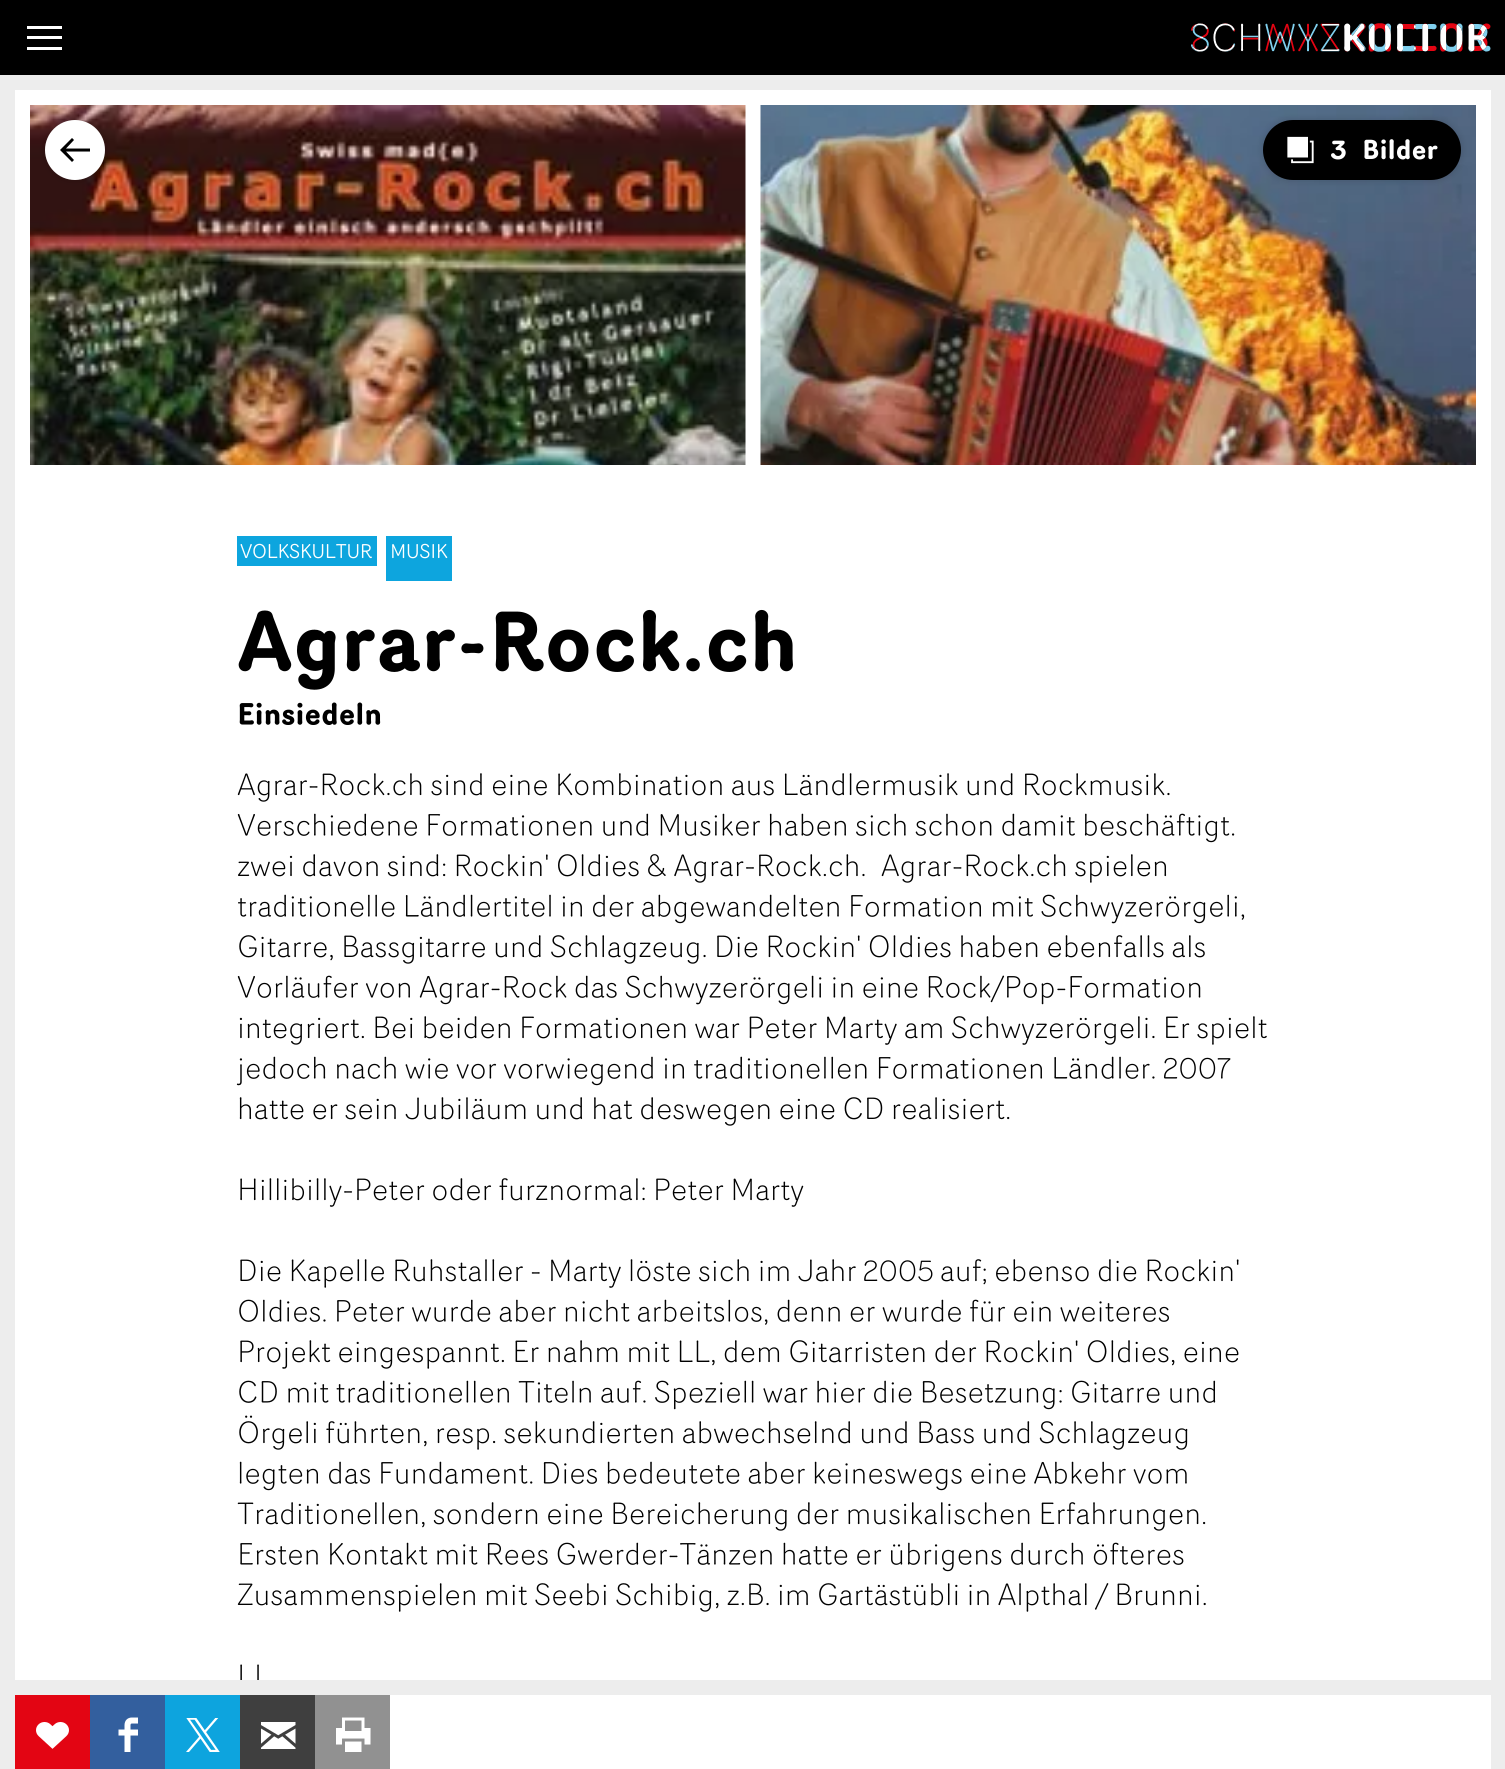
#include <cairo/cairo.h>
#include <math.h>
#include <stddef.h>

static cairo_t *cr;

static void use_color(int r, int g, int b) {
  cairo_set_source_rgb(cr, r / 255.0, g / 255.0, b / 255.0);
}

static void box(double x, double y, double w, double h, int r, int g, int b) {
  use_color(r, g, b);
  cairo_rectangle(cr, x, y, w, h);
  cairo_fill(cr);
}

static void round_rect(double x, double y, double w, double h, double r) {
  cairo_new_sub_path(cr);
  cairo_arc(cr, x + w - r, y + h - r, r, 0, M_PI / 2);
  cairo_arc(cr, x + r, y + h - r, r, M_PI / 2, M_PI);
  cairo_arc(cr, x + r, y + r, r, M_PI, 1.5 * M_PI);
  cairo_arc(cr, x + w - r, y + r, r, 1.5 * M_PI, 2 * M_PI);
  cairo_close_path(cr);
}

static void shadow(double x, double y, double w, double h, double r, double blur, double alpha) {
  cairo_push_group_with_content(cr, CAIRO_CONTENT_ALPHA);
  cairo_set_operator(cr, CAIRO_OPERATOR_SOURCE);
  for (int i = 15; i >= -15 && fmin(w, h) + blur * i / 3 > 0; i -= 2) {
    double e = blur * i / 6;
    cairo_set_source_rgba(cr, 0, 0, 0, alpha * erfc((i - 1) / 8.5) / 2);
    round_rect(x - e, y - e, w + 2 * e, h + 2 * e, fmax(0, fmin(r + e + blur * .6, fmin(w, h) / 2 + e)));
    cairo_fill(cr);
  }
  cairo_pattern_t *soft = cairo_pop_group(cr);
  cairo_mask(cr, soft);
  cairo_pattern_destroy(soft);
}

static void picture(const char *path, double x, double y, double w, double h) {
  cairo_surface_t *image = cairo_image_surface_create_from_png(path);
  cairo_save(cr);
  cairo_set_source_surface(cr, image, x, y);
  cairo_rectangle(cr, x, y, w, h);
  cairo_fill(cr);
  cairo_restore(cr);
  cairo_surface_destroy(image);
}

static void draw(void) {
  use_color(0, 0, 0);
  cairo_paint(cr);
  box(27, 36, 35, 3, 255, 255, 255);
  box(27, 26, 35, 3, 255, 255, 255);
  box(27, 47, 35, 3, 255, 255, 255);
  picture("img_01.png", 1191, 23, 300, 29);
  box(0, 75, 1505, 1694, 237, 237, 237);
  box(15, 90, 1476, 1590, 255, 255, 255);
  picture("img_02.png", 30, 105, 716, 360);
  picture("img_03.png", 760, 105, 716, 360);
  use_color(0, 0, 0);
  shadow(45, 120, 60, 60, 30, 4, 0.16);
  use_color(255, 255, 255);
  cairo_arc(cr, 75, 150, 30, 0, 2 * M_PI);
  cairo_fill(cr);
  use_color(0, 0, 0);
  cairo_new_path(cr);
  cairo_move_to(cr, 72, 138);
  cairo_line_to(cr, 74, 140);
  cairo_line_to(cr, 66, 148.5);
  cairo_line_to(cr, 90, 148.5);
  cairo_line_to(cr, 90, 151.5);
  cairo_line_to(cr, 66, 151.5);
  cairo_line_to(cr, 74, 160);
  cairo_line_to(cr, 72, 162);
  cairo_line_to(cr, 60, 150);
  cairo_close_path(cr);
  cairo_fill(cr);
  use_color(0, 0, 0);
  shadow(1263, 120, 198, 60, 30, 4, 0.16);
  use_color(0, 0, 0);
  round_rect(1263, 120, 198, 60, 30);
  cairo_fill(cr);
  picture("img_04.png", 1287, 136, 27, 28);
  picture("img_05.png", 1331, 140, 15, 20);
  picture("img_06.png", 1364, 139, 74, 21);
  box(237, 536, 140, 30, 13, 165, 222);
  picture("img_07.png", 240, 543, 132, 16);
  box(386, 536, 66, 45, 13, 165, 222);
  picture("img_08.png", 392, 543, 56, 16);
  picture("img_09.png", 238, 609, 555, 81);
  picture("img_10.png", 239, 702, 142, 23);
  picture("img_11.png", 237, 773, 933, 29);
  picture("img_12.png", 237, 813, 998, 30);
  picture("img_13.png", 238, 854, 929, 29);
  picture("img_14.png", 238, 894, 1007, 30);
  picture("img_15.png", 239, 935, 966, 29);
  picture("img_16.png", 237, 975, 964, 30);
  picture("img_17.png", 239, 1016, 1028, 29);
  picture("img_18.png", 236, 1056, 995, 30);
  picture("img_19.png", 239, 1097, 771, 29);
  picture("img_20.png", 240, 1178, 564, 29);
  picture("img_21.png", 240, 1259, 999, 29);
  picture("img_22.png", 239, 1299, 930, 26);
  picture("img_23.png", 240, 1340, 999, 29);
  picture("img_24.png", 239, 1380, 977, 30);
  picture("img_25.png", 239, 1415, 949, 35);
  picture("img_26.png", 239, 1461, 948, 30);
  picture("img_27.png", 237, 1502, 969, 29);
  picture("img_28.png", 240, 1542, 944, 30);
  picture("img_29.png", 237, 1583, 969, 29);
  picture("img_30.png", 240, 1664, 19, 16);
  box(390, 1695, 1101, 74, 255, 255, 255);
  box(15, 1695, 75, 74, 227, 5, 19);
  picture("img_31.png", 36, 1722, 33, 27);
  box(90, 1695, 75, 74, 51, 95, 158);
  picture("img_32.png", 118, 1717, 20, 35);
  box(165, 1695, 75, 74, 13, 164, 222);
  picture("img_33.png", 186, 1718, 34, 34);
  box(240, 1695, 75, 74, 63, 63, 63);
  picture("img_34.png", 261, 1722, 35, 27);
  box(315, 1695, 75, 74, 145, 145, 145);
  picture("img_35.png", 336, 1717, 35, 35);
}

int main(void) {
  cairo_surface_t *surface = cairo_image_surface_create(CAIRO_FORMAT_RGB24, 1505, 1769);
  cr = cairo_create(surface);
  cairo_font_options_t *options = cairo_font_options_create();
  cairo_font_options_set_hint_metrics(options, CAIRO_HINT_METRICS_OFF);
  cairo_font_options_set_hint_style(options, CAIRO_HINT_STYLE_NONE);
  cairo_set_font_options(cr, options);
  cairo_set_miter_limit(cr, 4);
  draw();
  cairo_surface_write_to_png(surface, "out.png");
  cairo_font_options_destroy(options);
  cairo_destroy(cr);
  cairo_surface_destroy(surface);
  return 0;
}
